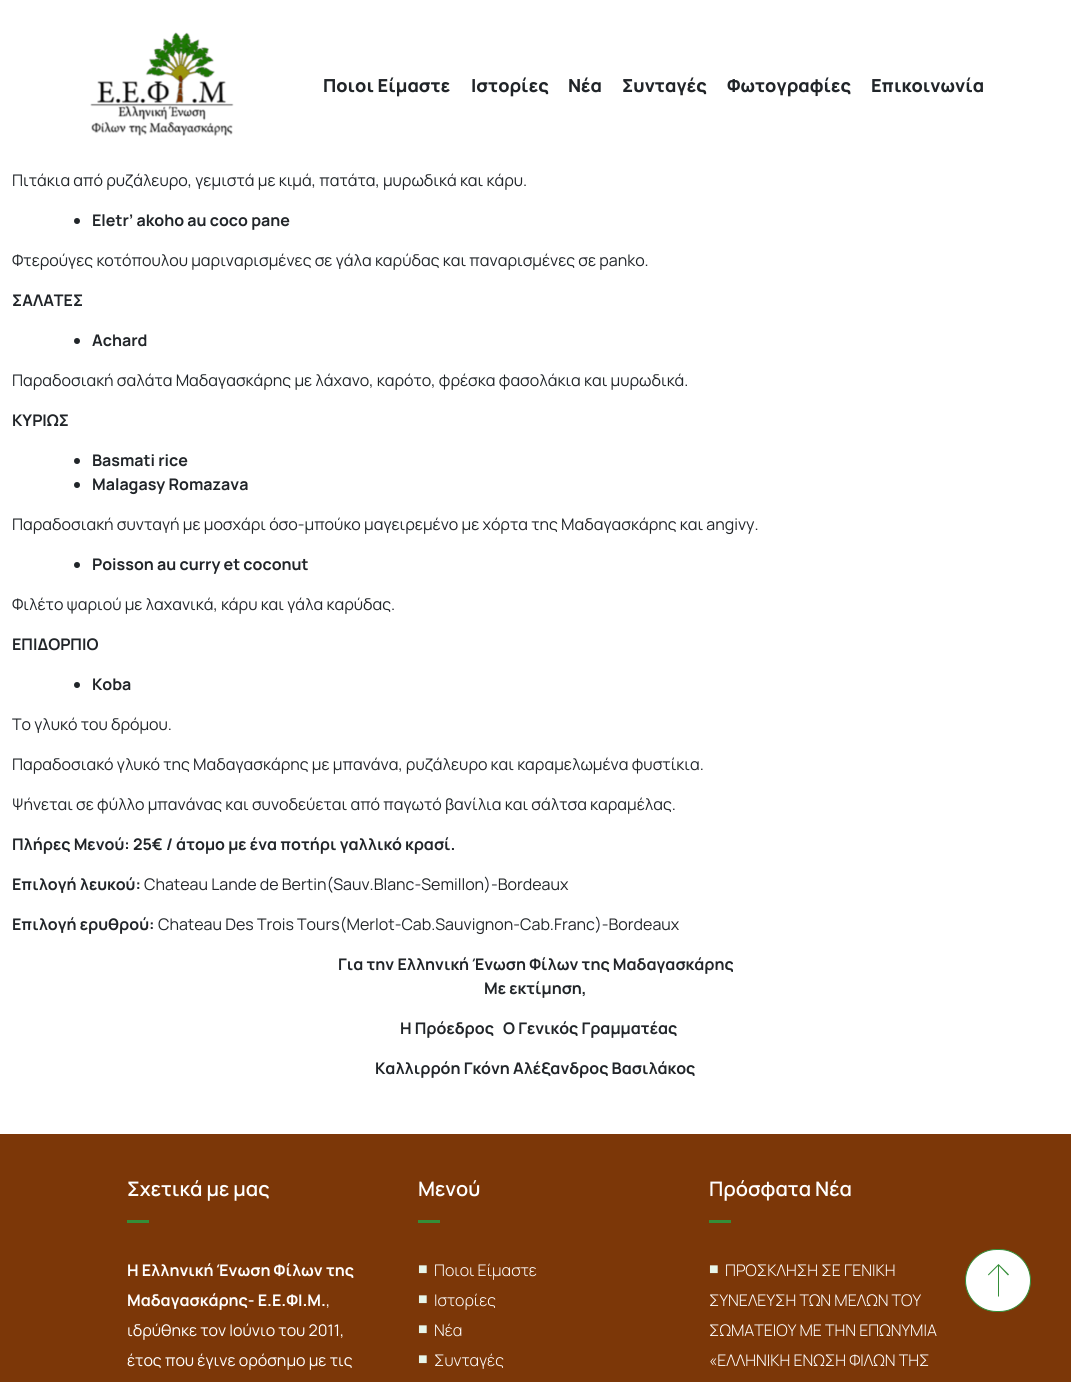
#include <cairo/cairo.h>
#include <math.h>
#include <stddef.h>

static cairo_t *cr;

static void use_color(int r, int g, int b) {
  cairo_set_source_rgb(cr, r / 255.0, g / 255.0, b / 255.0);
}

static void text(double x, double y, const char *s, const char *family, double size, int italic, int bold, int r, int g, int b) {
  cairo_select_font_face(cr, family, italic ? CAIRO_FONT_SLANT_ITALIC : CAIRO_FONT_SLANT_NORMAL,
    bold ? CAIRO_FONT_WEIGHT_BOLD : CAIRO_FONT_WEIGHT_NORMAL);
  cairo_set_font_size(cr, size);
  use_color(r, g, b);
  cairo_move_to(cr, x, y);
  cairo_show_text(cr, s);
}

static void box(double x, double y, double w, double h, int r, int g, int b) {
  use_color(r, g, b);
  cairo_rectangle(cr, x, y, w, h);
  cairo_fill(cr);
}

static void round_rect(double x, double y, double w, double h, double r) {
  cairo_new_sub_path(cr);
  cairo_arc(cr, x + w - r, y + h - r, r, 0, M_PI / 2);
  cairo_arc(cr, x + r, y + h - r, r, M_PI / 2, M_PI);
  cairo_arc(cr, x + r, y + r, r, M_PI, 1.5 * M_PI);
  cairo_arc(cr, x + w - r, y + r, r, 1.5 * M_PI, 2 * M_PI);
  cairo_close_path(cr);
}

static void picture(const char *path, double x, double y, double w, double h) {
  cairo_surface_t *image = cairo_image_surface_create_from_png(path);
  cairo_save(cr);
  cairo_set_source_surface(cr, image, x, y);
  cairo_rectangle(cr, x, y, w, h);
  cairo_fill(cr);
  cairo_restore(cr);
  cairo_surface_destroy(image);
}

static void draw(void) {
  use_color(255, 255, 255);
  cairo_paint(cr);
  picture("img_01.png", 90, 32, 144, 104);
  use_color(33, 37, 41);
  cairo_arc(cr, 77, 221, 3, 0, 2 * M_PI);
  cairo_fill(cr);
  cairo_arc(cr, 77, 341, 3, 0, 2 * M_PI);
  cairo_fill(cr);
  cairo_arc(cr, 77, 461, 3, 0, 2 * M_PI);
  cairo_fill(cr);
  cairo_arc(cr, 77, 485, 3, 0, 2 * M_PI);
  cairo_fill(cr);
  cairo_arc(cr, 77, 565, 3, 0, 2 * M_PI);
  cairo_fill(cr);
  cairo_arc(cr, 77, 685, 3, 0, 2 * M_PI);
  cairo_fill(cr);
  box(0, 1134, 1071, 248, 124, 55, 8);
  box(127, 1220, 22, 3, 52, 142, 56);
  box(418, 1220, 22, 3, 52, 142, 56);
  box(709, 1220, 22, 3, 52, 142, 56);
  use_color(255, 255, 255);
  round_rect(965.5, 1249.5, 65, 62, 31);
  cairo_fill_preserve(cr);
  use_color(52, 142, 56);
  cairo_set_line_width(cr, 1);
  cairo_stroke(cr);
  cairo_new_path(cr);
  cairo_move_to(cr, 999, 1266);
  cairo_line_to(cr, 1008, 1275.5);
  cairo_line_to(cr, 1009, 1274.5);
  cairo_line_to(cr, 998.5, 1264);
  cairo_line_to(cr, 988, 1274.5);
  cairo_line_to(cr, 988.5, 1275.5);
  cairo_line_to(cr, 998, 1266);
  cairo_line_to(cr, 998, 1296.5);
  cairo_line_to(cr, 999, 1296.5);
  cairo_close_path(cr);
  cairo_fill(cr);
  text(323, 92, "Ποιοι Είμαστε", "Manrope ExtraBold", 18, 0, 0, 33, 37, 41);
  text(471, 92, "Ιστορίες", "Manrope ExtraBold", 18, 0, 0, 33, 37, 41);
  text(568, 92, "Νέα", "Manrope ExtraBold", 18, 0, 0, 33, 37, 41);
  text(622, 92, "Συνταγές", "Manrope ExtraBold", 18, 0, 0, 33, 37, 41);
  text(727, 92, "Φωτογραφίες", "Manrope ExtraBold", 18, 0, 0, 33, 37, 41);
  text(871, 92, "Επικοινωνία", "Manrope ExtraBold", 18, 0, 0, 33, 37, 41);
  text(12, 186, "Πιτάκια από ρυζάλευρο, γεμιστά με κιμά, πατάτα, μυρωδικά και κάρυ.", "Manrope", 16, 0, 0, 33, 37, 41);
  text(92, 226, "Εletr’ akoho au coco pane", "Manrope", 16, 0, 1, 33, 37, 41);
  text(12, 266, "Φτερούγες κοτόπουλου μαριναρισμένες σε γάλα καρύδας και παναρισμένες σε panko.", "Manrope", 16, 0, 0, 33, 37, 41);
  text(12, 306, "ΣΑΛΑΤΕΣ", "Manrope", 16, 0, 1, 33, 37, 41);
  text(92, 346, "Achard", "Manrope", 16, 0, 1, 33, 37, 41);
  text(12, 386, "Παραδοσιακή σαλάτα Μαδαγασκάρης με λάχανο, καρότο, φρέσκα φασολάκια και μυρωδικά.", "Manrope", 16, 0, 0, 33, 37, 41);
  text(12, 426, "ΚΥΡΙΩΣ", "Manrope", 16, 0, 1, 33, 37, 41);
  text(92, 466, "Basmati rice", "Manrope", 16, 0, 1, 33, 37, 41);
  text(92, 490, "Malagasy Romazava", "Manrope", 16, 0, 1, 33, 37, 41);
  text(12, 530, "Παραδοσιακή συνταγή με μοσχάρι όσο-μπούκο μαγειρεμένο με χόρτα της Μαδαγασκάρης και angivy.", "Manrope", 16, 0, 0, 33, 37, 41);
  text(92, 570, "Poisson au curry et coconut", "Manrope", 16, 0, 1, 33, 37, 41);
  text(12, 610, "Φιλέτο ψαριού με λαχανικά, κάρυ και γάλα καρύδας.", "Manrope", 16, 0, 0, 33, 37, 41);
  text(12, 650, "ΕΠΙΔΟΡΠΙΟ", "Manrope", 16, 0, 1, 33, 37, 41);
  text(92, 690, "Κoba", "Manrope", 16, 0, 1, 33, 37, 41);
  text(12, 730, "Tο γλυκό του δρόμου.", "Manrope", 16, 0, 0, 33, 37, 41);
  text(12, 770, "Παραδοσιακό γλυκό της Μαδαγασκάρης με μπανάνα, ρυζάλευρο και καραμελωμένα φυστίκια.", "Manrope", 16, 0, 0, 33, 37, 41);
  text(12, 810, "Ψήνεται σε φύλλο μπανάνας και συνοδεύεται από παγωτό βανίλια και σάλτσα καραμέλας.", "Manrope", 16, 0, 0, 33, 37, 41);
  text(12, 850, "Πλήρες Μενού: 25€ / άτομο με ένα ποτήρι γαλλικό κρασί.", "Manrope", 16, 0, 1, 33, 37, 41);
  text(12, 890, "Επιλογή λευκού:", "Manrope", 16, 0, 1, 33, 37, 41);
  text(144, 890, "Chateau Lande de Bertin(Sauv.Blanc-Semillon)-Bordeaux", "Manrope", 16, 0, 0, 33, 37, 41);
  text(12, 930, "Επιλογή ερυθρού:", "Manrope", 16, 0, 1, 33, 37, 41);
  text(158, 930, "Chateau Des Trois Tours(Merlot-Cab.Sauvignon-Cab.Franc)-Bordeaux", "Manrope", 16, 0, 0, 33, 37, 41);
  text(338, 970, "Για την Ελληνική Ένωση Φίλων της Μαδαγασκάρης", "Manrope", 16, 0, 1, 33, 37, 41);
  text(484, 994, "Με εκτίμηση,", "Manrope", 16, 0, 1, 33, 37, 41);
  text(400, 1034, "Η Πρόεδρος", "Manrope", 16, 0, 1, 33, 37, 41);
  text(503, 1034, "Ο Γενικός Γραμματέας", "Manrope", 16, 0, 1, 33, 37, 41);
  text(375, 1074, "Καλλιρρόη Γκόνη Αλέξανδρος Βασιλάκος", "Manrope", 16, 0, 1, 33, 37, 41);
  text(127, 1196, "Σχετικά με μας", "Manrope SemiBold", 20, 0, 0, 255, 255, 255);
  text(127, 1276, "Η Ελληνική Ένωση Φίλων της", "Manrope", 16, 0, 1, 255, 255, 255);
  text(127, 1306, "Μαδαγασκάρης- Ε.Ε.ΦΙ.Μ.", "Manrope", 16, 0, 1, 255, 255, 255);
  text(326, 1306, ",", "Manrope", 16, 0, 0, 255, 255, 255);
  text(127, 1336, "ιδρύθηκε τον Ιούνιο του 2011,", "Manrope", 16, 0, 0, 255, 255, 255);
  text(127, 1366, "έτος που έγινε ορόσημο με τις", "Manrope", 16, 0, 0, 255, 255, 255);
  text(418, 1196, "Μενού", "Manrope SemiBold", 20, 0, 0, 255, 255, 255);
  text(418, 1274, "■", "Liberation Serif", 16, 0, 1, 232, 245, 233);
  text(434, 1276, "Ποιοι Είμαστε", "Manrope Light", 16, 0, 0, 255, 255, 255);
  text(418, 1304, "■", "Liberation Serif", 16, 0, 1, 232, 245, 233);
  text(434, 1306, "Ιστορίες", "Manrope Light", 16, 0, 0, 255, 255, 255);
  text(418, 1334, "■", "Liberation Serif", 16, 0, 1, 232, 245, 233);
  text(434, 1336, "Νέα", "Manrope Light", 16, 0, 0, 255, 255, 255);
  text(418, 1364, "■", "Liberation Serif", 16, 0, 1, 232, 245, 233);
  text(434, 1366, "Συνταγές", "Manrope Light", 16, 0, 0, 255, 255, 255);
  text(709, 1196, "Πρόσφατα Νέα", "Manrope SemiBold", 20, 0, 0, 255, 255, 255);
  text(709, 1274, "■", "Liberation Serif", 16, 0, 1, 232, 245, 233);
  text(725, 1276, "ΠΡΟΣΚΛΗΣΗ ΣΕ ΓΕΝΙΚΗ", "Manrope Light", 16, 0, 0, 255, 255, 255);
  text(709, 1306, "ΣΥΝΕΛΕΥΣΗ ΤΩΝ ΜΕΛΩΝ ΤΟΥ", "Manrope Light", 16, 0, 0, 255, 255, 255);
  text(709, 1336, "ΣΩΜΑΤΕΙΟΥ ΜΕ ΤΗΝ ΕΠΩΝΥΜΙΑ", "Manrope Light", 16, 0, 0, 255, 255, 255);
  text(709, 1366, "«ΕΛΛΗΝΙΚΗ ΕΝΩΣΗ ΦΙΛΩΝ ΤΗΣ", "Manrope Light", 16, 0, 0, 255, 255, 255);
}

int main(void) {
  cairo_surface_t *surface = cairo_image_surface_create(CAIRO_FORMAT_RGB24, 1071, 1382);
  cr = cairo_create(surface);
  cairo_font_options_t *options = cairo_font_options_create();
  cairo_font_options_set_hint_metrics(options, CAIRO_HINT_METRICS_OFF);
  cairo_font_options_set_hint_style(options, CAIRO_HINT_STYLE_NONE);
  cairo_set_font_options(cr, options);
  cairo_set_miter_limit(cr, 4);
  draw();
  cairo_surface_write_to_png(surface, "out.png");
  cairo_font_options_destroy(options);
  cairo_destroy(cr);
  cairo_surface_destroy(surface);
  return 0;
}
